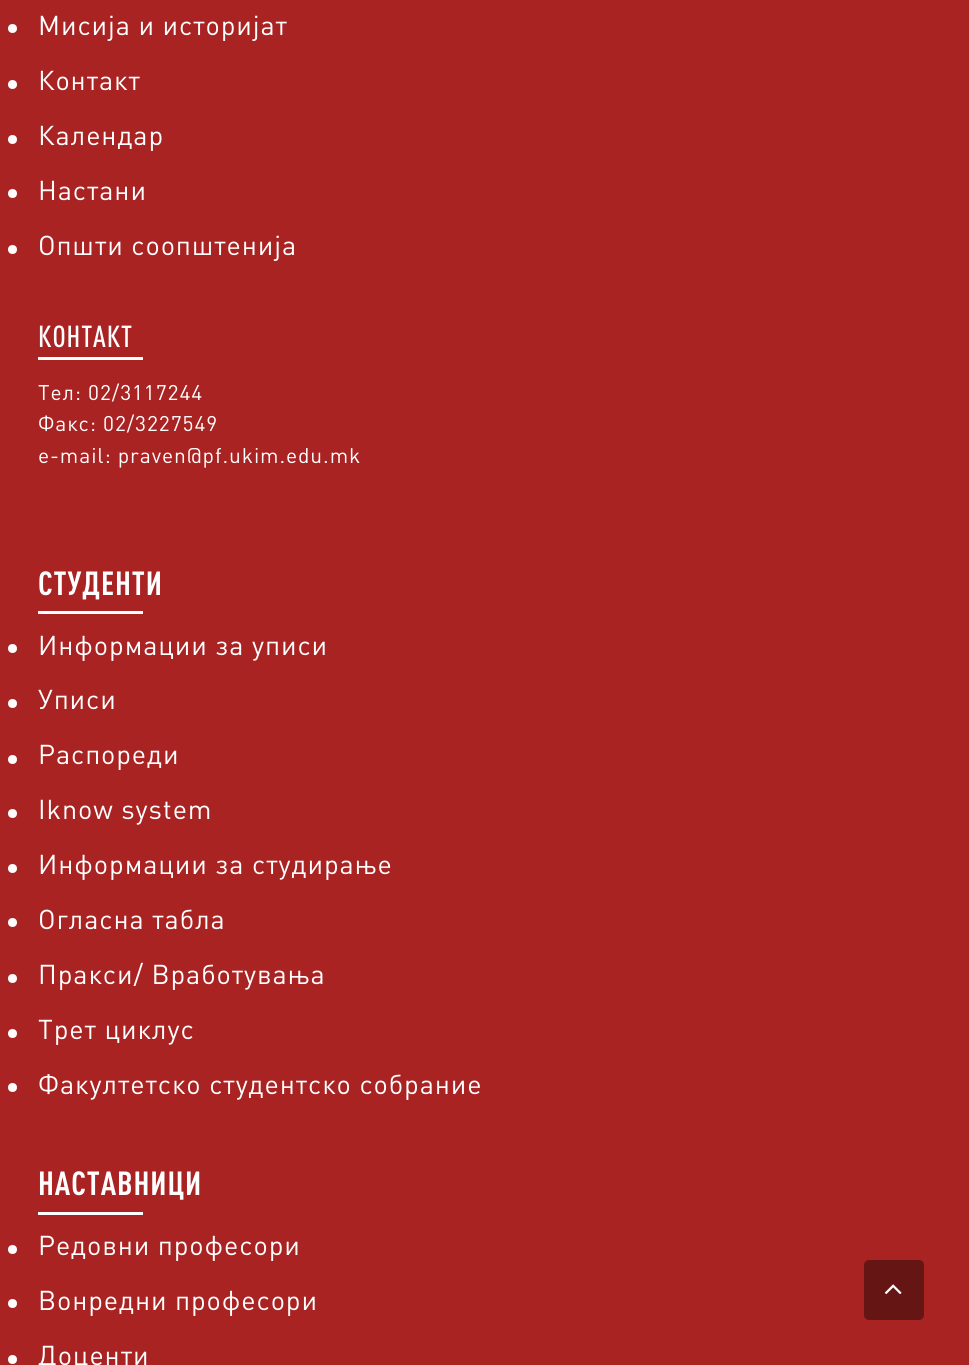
#include <cairo/cairo.h>
#include <math.h>
#include <stddef.h>

static cairo_t *cr;

static void use_color(int r, int g, int b) {
  cairo_set_source_rgb(cr, r / 255.0, g / 255.0, b / 255.0);
}

static void spaced_text(double x, double y, const char *s, double letter, double word) {
  cairo_move_to(cr, x, y);
  while (*s) {
    char ch[5] = {0};
    int n = 0;
    do ch[n++] = *s++; while ((*s & 0xC0) == 0x80);
    cairo_show_text(cr, ch);
    cairo_rel_move_to(cr, letter + word * (*ch == ' '), 0);
  }
}

static void box(double x, double y, double w, double h, int r, int g, int b) {
  use_color(r, g, b);
  cairo_rectangle(cr, x, y, w, h);
  cairo_fill(cr);
}

static void round_rect(double x, double y, double w, double h, double r) {
  cairo_new_sub_path(cr);
  cairo_arc(cr, x + w - r, y + h - r, r, 0, M_PI / 2);
  cairo_arc(cr, x + r, y + h - r, r, M_PI / 2, M_PI);
  cairo_arc(cr, x + r, y + r, r, M_PI, 1.5 * M_PI);
  cairo_arc(cr, x + w - r, y + r, r, 1.5 * M_PI, 2 * M_PI);
  cairo_close_path(cr);
}

static void picture(const char *path, double x, double y, double w, double h) {
  cairo_surface_t *image = cairo_image_surface_create_from_png(path);
  cairo_save(cr);
  cairo_set_source_surface(cr, image, x, y);
  cairo_rectangle(cr, x, y, w, h);
  cairo_fill(cr);
  cairo_restore(cr);
  cairo_surface_destroy(image);
}

static void draw(void) {
  use_color(170, 35, 35);
  cairo_paint(cr);
  use_color(255, 255, 255);
  cairo_arc(cr, 12.5, 28.5, 4.5, 0, 2 * M_PI);
  cairo_fill(cr);
  cairo_arc(cr, 12.5, 84.5, 4.5, 0, 2 * M_PI);
  cairo_fill(cr);
  cairo_arc(cr, 12.5, 139.5, 4.5, 0, 2 * M_PI);
  cairo_fill(cr);
  cairo_arc(cr, 12.5, 193.5, 4.5, 0, 2 * M_PI);
  cairo_fill(cr);
  cairo_arc(cr, 12.5, 249.5, 4.5, 0, 2 * M_PI);
  cairo_fill(cr);
  box(38, 357, 105, 3, 255, 255, 255);
  box(38, 611, 105, 3, 255, 255, 255);
  cairo_arc(cr, 12.5, 648.5, 4.5, 0, 2 * M_PI);
  cairo_fill(cr);
  cairo_arc(cr, 12.5, 703.5, 4.5, 0, 2 * M_PI);
  cairo_fill(cr);
  cairo_arc(cr, 12.5, 759.5, 4.5, 0, 2 * M_PI);
  cairo_fill(cr);
  cairo_arc(cr, 12.5, 813.5, 4.5, 0, 2 * M_PI);
  cairo_fill(cr);
  cairo_arc(cr, 12.5, 868.5, 4.5, 0, 2 * M_PI);
  cairo_fill(cr);
  cairo_arc(cr, 12.5, 922.5, 4.5, 0, 2 * M_PI);
  cairo_fill(cr);
  cairo_arc(cr, 12.5, 978.5, 4.5, 0, 2 * M_PI);
  cairo_fill(cr);
  cairo_arc(cr, 12.5, 1033.5, 4.5, 0, 2 * M_PI);
  cairo_fill(cr);
  cairo_arc(cr, 12.5, 1087.5, 4.5, 0, 2 * M_PI);
  cairo_fill(cr);
  box(38, 1212, 105, 3, 255, 255, 255);
  cairo_arc(cr, 12.5, 1249.5, 4.5, 0, 2 * M_PI);
  cairo_fill(cr);
  cairo_arc(cr, 12.5, 1303.5, 4.5, 0, 2 * M_PI);
  cairo_fill(cr);
  cairo_arc(cr, 12.5, 1359.5, 4.5, 0, 2 * M_PI);
  cairo_fill(cr);
  use_color(102, 21, 21);
  round_rect(864, 1260, 60, 60, 5);
  cairo_fill(cr);
  picture("img_01.png", 884, 1284, 18, 11);
  cairo_select_font_face(cr, "DIN", CAIRO_FONT_SLANT_NORMAL, CAIRO_FONT_WEIGHT_NORMAL);
  cairo_set_font_size(cr, 27);
  use_color(255, 255, 255);
  spaced_text(38, 35, "Мисија и историјат", 0.9, 0);
  spaced_text(38, 90, "Контакт", 0.9, 0);
  spaced_text(38, 145, "Календар", 0.9, 0);
  spaced_text(38, 200, "Настани", 0.9, 0);
  spaced_text(38, 255, "Општи соопштенија", 0.9, 0);
  cairo_select_font_face(cr, "DIN Medium", CAIRO_FONT_SLANT_NORMAL, CAIRO_FONT_WEIGHT_NORMAL);
  cairo_set_font_size(cr, 30);
  spaced_text(38, 347, "КОНТАКТ", 0.9, 0);
  cairo_select_font_face(cr, "DIN", CAIRO_FONT_SLANT_NORMAL, CAIRO_FONT_WEIGHT_NORMAL);
  cairo_set_font_size(cr, 21);
  spaced_text(38, 400, "Тел: 02/3117244", 0.9, 0);
  spaced_text(38, 431, "Факс: 02/3227549", 0.9, 0);
  spaced_text(38, 463, "e-mail: praven@pf.ukim.edu.mk", 0.9, 0);
  cairo_select_font_face(cr, "DIN", CAIRO_FONT_SLANT_NORMAL, CAIRO_FONT_WEIGHT_BOLD);
  cairo_set_font_size(cr, 33);
  spaced_text(38, 595, "СТУДЕНТИ", 0.9, 0);
  cairo_select_font_face(cr, "DIN", CAIRO_FONT_SLANT_NORMAL, CAIRO_FONT_WEIGHT_NORMAL);
  cairo_set_font_size(cr, 27);
  spaced_text(38, 655, "Информации за уписи", 0.9, 0);
  spaced_text(38, 709, "Уписи", 0.9, 0);
  spaced_text(38, 764, "Распореди", 0.9, 0);
  spaced_text(38, 819, "Iknow system", 0.9, 0);
  spaced_text(38, 874, "Информации за студирање", 0.9, 0);
  spaced_text(38, 929, "Огласна табла", 0.9, 0);
  spaced_text(38, 984, "Пракси/ Вработувања", 0.9, 0);
  spaced_text(38, 1039, "Трет циклус", 0.9, 0);
  spaced_text(38, 1094, "Факултетско студентско собрание", 0.9, 0);
  cairo_select_font_face(cr, "DIN", CAIRO_FONT_SLANT_NORMAL, CAIRO_FONT_WEIGHT_BOLD);
  cairo_set_font_size(cr, 33);
  spaced_text(38, 1195, "НАСТАВНИЦИ", 0.9, 0);
  cairo_select_font_face(cr, "DIN", CAIRO_FONT_SLANT_NORMAL, CAIRO_FONT_WEIGHT_NORMAL);
  cairo_set_font_size(cr, 27);
  spaced_text(38, 1255, "Редовни професори", 0.9, 0);
  spaced_text(38, 1310, "Вонредни професори", 0.9, 0);
  spaced_text(38, 1365, "Доценти", 0.9, 0);
}

int main(void) {
  cairo_surface_t *surface = cairo_image_surface_create(CAIRO_FORMAT_RGB24, 969, 1365);
  cr = cairo_create(surface);
  cairo_font_options_t *options = cairo_font_options_create();
  cairo_font_options_set_hint_metrics(options, CAIRO_HINT_METRICS_OFF);
  cairo_font_options_set_hint_style(options, CAIRO_HINT_STYLE_NONE);
  cairo_set_font_options(cr, options);
  cairo_set_miter_limit(cr, 4);
  draw();
  cairo_surface_write_to_png(surface, "out.png");
  cairo_font_options_destroy(options);
  cairo_destroy(cr);
  cairo_surface_destroy(surface);
  return 0;
}
